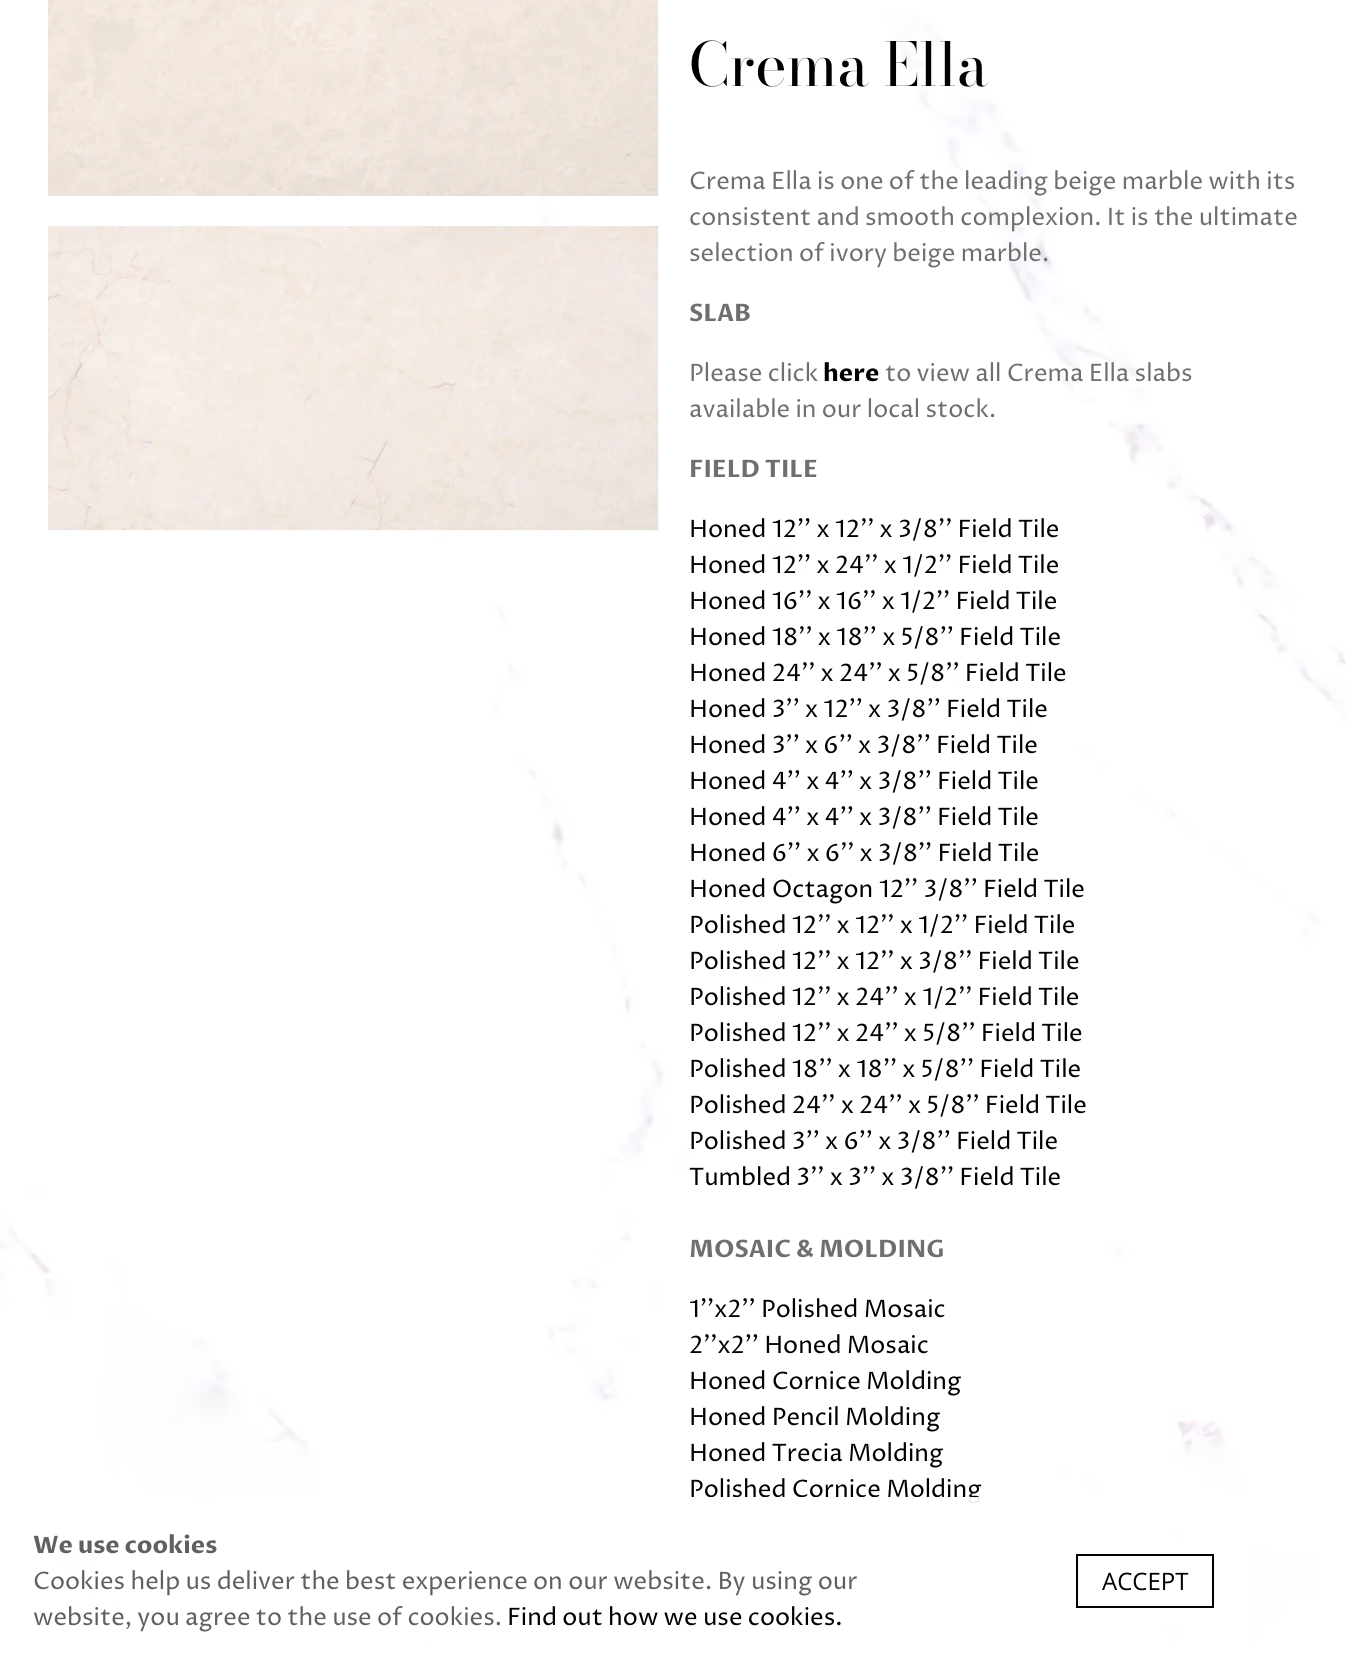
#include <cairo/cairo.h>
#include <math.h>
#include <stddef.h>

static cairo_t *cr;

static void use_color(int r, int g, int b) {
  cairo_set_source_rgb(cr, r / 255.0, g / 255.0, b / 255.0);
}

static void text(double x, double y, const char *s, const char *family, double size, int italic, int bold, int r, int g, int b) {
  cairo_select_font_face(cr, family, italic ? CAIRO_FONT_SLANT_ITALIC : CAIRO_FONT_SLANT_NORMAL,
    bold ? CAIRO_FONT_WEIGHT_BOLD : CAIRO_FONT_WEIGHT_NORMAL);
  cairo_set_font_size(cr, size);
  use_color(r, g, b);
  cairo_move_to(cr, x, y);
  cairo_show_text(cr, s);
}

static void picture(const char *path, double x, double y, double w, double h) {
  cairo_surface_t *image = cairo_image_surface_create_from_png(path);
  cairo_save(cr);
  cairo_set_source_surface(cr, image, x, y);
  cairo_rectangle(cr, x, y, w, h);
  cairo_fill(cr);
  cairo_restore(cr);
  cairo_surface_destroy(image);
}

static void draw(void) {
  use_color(255, 255, 255);
  cairo_paint(cr);
  picture("img_01.png", 0, 3, 1346, 1662);
  picture("img_02.png", 48, 0, 611, 196);
  picture("img_03.png", 48, 226, 611, 305);
  text(689, 86, "Crema Ella", "Bodoni Moda", 60, 0, 0, 0, 0, 0);
  text(689, 189, "Crema Ella is one of the leading beige marble with its", "Proza Libre", 24, 0, 0, 111, 111, 111);
  text(689, 225, "consistent and smooth complexion. It is the ultimate", "Proza Libre", 24, 0, 0, 111, 111, 111);
  text(689, 261, "selection of ivory beige marble.", "Proza Libre", 24, 0, 0, 111, 111, 111);
  text(689, 321, "SLAB", "Proza Libre", 24, 0, 1, 111, 111, 111);
  text(689, 381, "Please click", "Proza Libre", 24, 0, 0, 111, 111, 111);
  text(823, 381, "here", "Proza Libre", 24, 0, 1, 0, 0, 0);
  text(885, 381, "to view all Crema Ella slabs", "Proza Libre", 24, 0, 0, 111, 111, 111);
  text(689, 417, "available in our local stock.", "Proza Libre", 24, 0, 0, 111, 111, 111);
  text(689, 477, "FIELD TILE", "Proza Libre", 24, 0, 1, 111, 111, 111);
  text(689, 537, "Honed 12'' x 12'' x 3/8'' Field Tile", "Proza Libre", 24, 0, 0, 0, 0, 0);
  text(689, 573, "Honed 12'' x 24'' x 1/2'' Field Tile", "Proza Libre", 24, 0, 0, 0, 0, 0);
  text(689, 609, "Honed 16'' x 16'' x 1/2'' Field Tile", "Proza Libre", 24, 0, 0, 0, 0, 0);
  text(689, 645, "Honed 18'' x 18'' x 5/8'' Field Tile", "Proza Libre", 24, 0, 0, 0, 0, 0);
  text(689, 681, "Honed 24'' x 24'' x 5/8'' Field Tile", "Proza Libre", 24, 0, 0, 0, 0, 0);
  text(689, 717, "Honed 3'' x 12'' x 3/8'' Field Tile", "Proza Libre", 24, 0, 0, 0, 0, 0);
  text(689, 753, "Honed 3'' x 6'' x 3/8'' Field Tile", "Proza Libre", 24, 0, 0, 0, 0, 0);
  text(689, 789, "Honed 4'' x 4'' x 3/8'' Field Tile", "Proza Libre", 24, 0, 0, 0, 0, 0);
  text(689, 825, "Honed 4'' x 4'' x 3/8'' Field Tile", "Proza Libre", 24, 0, 0, 0, 0, 0);
  text(689, 861, "Honed 6'' x 6'' x 3/8'' Field Tile", "Proza Libre", 24, 0, 0, 0, 0, 0);
  text(689, 897, "Honed Octagon 12'' 3/8'' Field Tile", "Proza Libre", 24, 0, 0, 0, 0, 0);
  text(689, 933, "Polished 12'' x 12'' x 1/2'' Field Tile", "Proza Libre", 24, 0, 0, 0, 0, 0);
  text(689, 969, "Polished 12'' x 12'' x 3/8'' Field Tile", "Proza Libre", 24, 0, 0, 0, 0, 0);
  text(689, 1005, "Polished 12'' x 24'' x 1/2'' Field Tile", "Proza Libre", 24, 0, 0, 0, 0, 0);
  text(689, 1041, "Polished 12'' x 24'' x 5/8'' Field Tile", "Proza Libre", 24, 0, 0, 0, 0, 0);
  text(689, 1077, "Polished 18'' x 18'' x 5/8'' Field Tile", "Proza Libre", 24, 0, 0, 0, 0, 0);
  text(689, 1113, "Polished 24'' x 24'' x 5/8'' Field Tile", "Proza Libre", 24, 0, 0, 0, 0, 0);
  text(689, 1149, "Polished 3'' x 6'' x 3/8'' Field Tile", "Proza Libre", 24, 0, 0, 0, 0, 0);
  text(689, 1185, "Tumbled 3'' x 3'' x 3/8'' Field Tile", "Proza Libre", 24, 0, 0, 0, 0, 0);
  text(689, 1257, "MOSAIC & MOLDING", "Proza Libre", 24, 0, 1, 111, 111, 111);
  text(689, 1317, "1''x2'' Polished Mosaic", "Proza Libre", 24, 0, 0, 0, 0, 0);
  text(689, 1353, "2''x2'' Honed Mosaic", "Proza Libre", 24, 0, 0, 0, 0, 0);
  text(689, 1389, "Honed Cornice Molding", "Proza Libre", 24, 0, 0, 0, 0, 0);
  text(689, 1425, "Honed Pencil Molding", "Proza Libre", 24, 0, 0, 0, 0, 0);
  text(689, 1461, "Honed Trecia Molding", "Proza Libre", 24, 0, 0, 0, 0, 0);
  text(689, 1497, "Polished Cornice Molding", "Proza Libre", 24, 0, 0, 0, 0, 0);
  cairo_set_source_rgba(cr, 1, 1, 1, 0.93);
  cairo_rectangle(cr, 92, 1497, 1156, 168);
  cairo_fill(cr);
  text(33, 1553, "We use cookies", "Proza Libre", 24, 0, 1, 96, 96, 96);
  text(33, 1589, "Cookies help us deliver the best experience on our website. By using our", "Proza Libre", 24, 0, 0, 96, 96, 96);
  text(33, 1625, "website, you agree to the use of cookies.", "Proza Libre", 24, 0, 0, 96, 96, 96);
  text(507, 1625, "Find out how we use cookies.", "Proza Libre", 24, 0, 0, 0, 0, 0);
  cairo_rectangle(cr, 1077, 1555, 136, 52);
  cairo_stroke(cr);
  text(1102, 1590, "ACCEPT", "Open Sans", 24, 0, 0, 0, 0, 0);
}

int main(void) {
  cairo_surface_t *surface = cairo_image_surface_create(CAIRO_FORMAT_RGB24, 1346, 1665);
  cr = cairo_create(surface);
  cairo_font_options_t *options = cairo_font_options_create();
  cairo_font_options_set_hint_metrics(options, CAIRO_HINT_METRICS_OFF);
  cairo_font_options_set_hint_style(options, CAIRO_HINT_STYLE_NONE);
  cairo_set_font_options(cr, options);
  cairo_set_miter_limit(cr, 4);
  draw();
  cairo_surface_write_to_png(surface, "out.png");
  cairo_font_options_destroy(options);
  cairo_destroy(cr);
  cairo_surface_destroy(surface);
  return 0;
}
